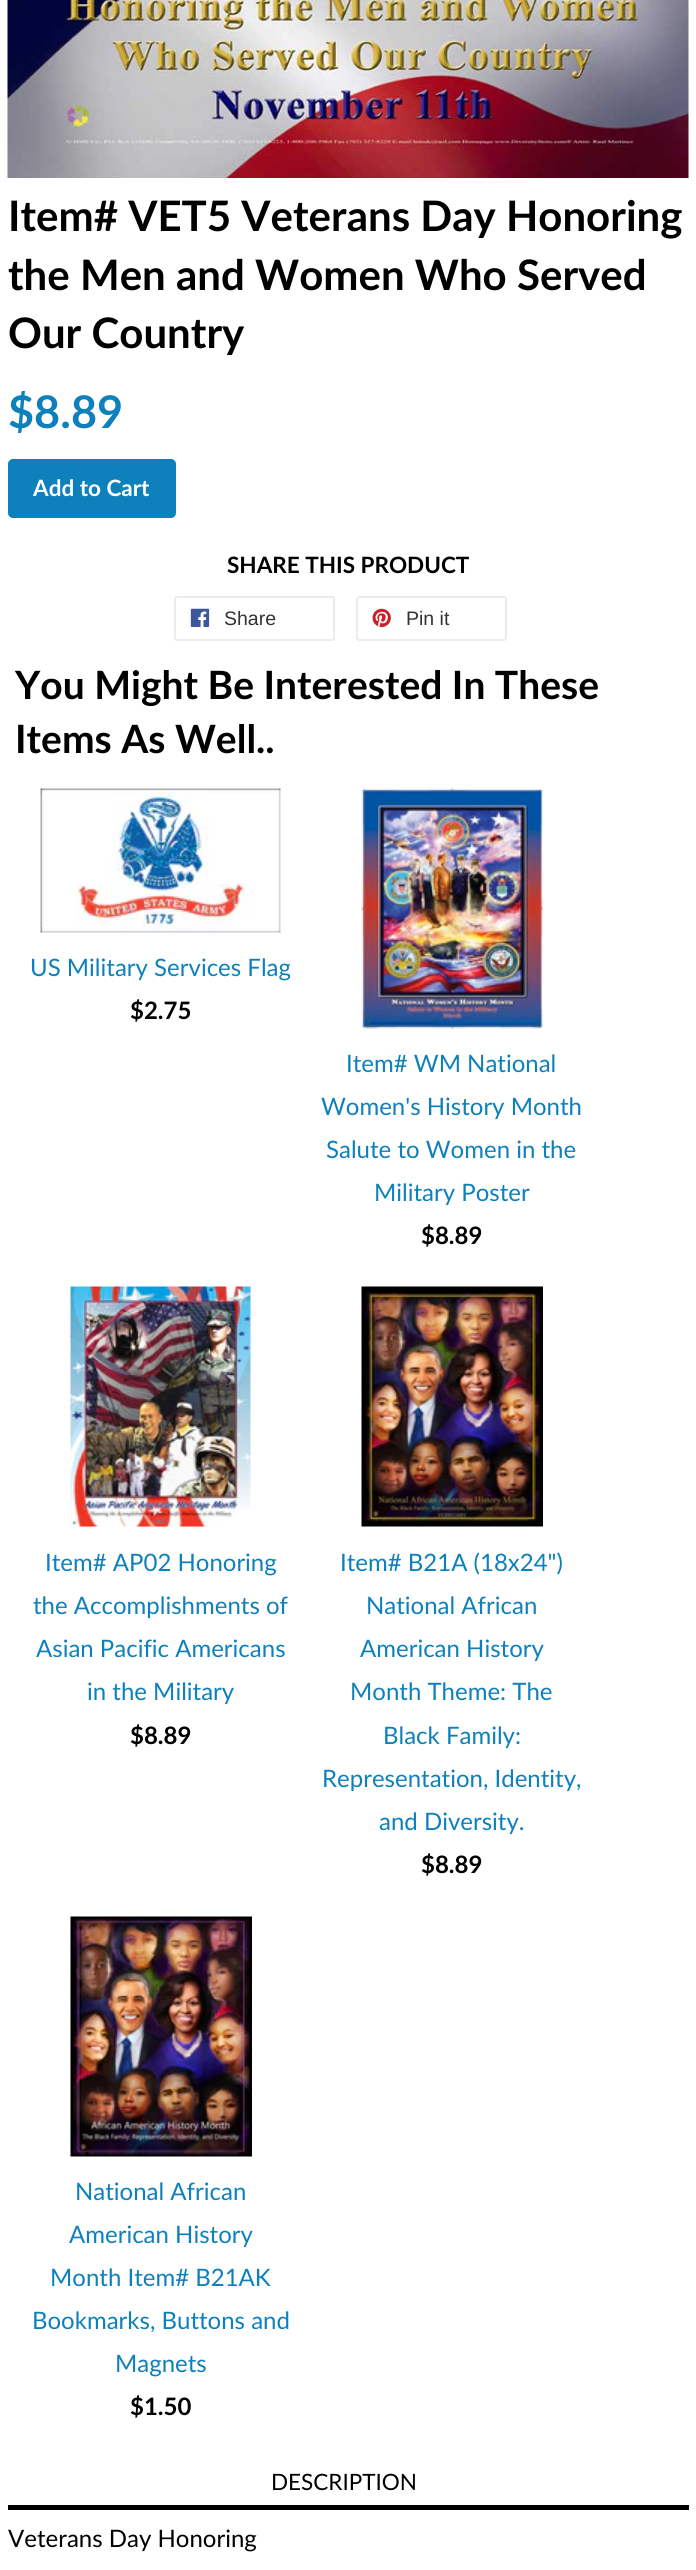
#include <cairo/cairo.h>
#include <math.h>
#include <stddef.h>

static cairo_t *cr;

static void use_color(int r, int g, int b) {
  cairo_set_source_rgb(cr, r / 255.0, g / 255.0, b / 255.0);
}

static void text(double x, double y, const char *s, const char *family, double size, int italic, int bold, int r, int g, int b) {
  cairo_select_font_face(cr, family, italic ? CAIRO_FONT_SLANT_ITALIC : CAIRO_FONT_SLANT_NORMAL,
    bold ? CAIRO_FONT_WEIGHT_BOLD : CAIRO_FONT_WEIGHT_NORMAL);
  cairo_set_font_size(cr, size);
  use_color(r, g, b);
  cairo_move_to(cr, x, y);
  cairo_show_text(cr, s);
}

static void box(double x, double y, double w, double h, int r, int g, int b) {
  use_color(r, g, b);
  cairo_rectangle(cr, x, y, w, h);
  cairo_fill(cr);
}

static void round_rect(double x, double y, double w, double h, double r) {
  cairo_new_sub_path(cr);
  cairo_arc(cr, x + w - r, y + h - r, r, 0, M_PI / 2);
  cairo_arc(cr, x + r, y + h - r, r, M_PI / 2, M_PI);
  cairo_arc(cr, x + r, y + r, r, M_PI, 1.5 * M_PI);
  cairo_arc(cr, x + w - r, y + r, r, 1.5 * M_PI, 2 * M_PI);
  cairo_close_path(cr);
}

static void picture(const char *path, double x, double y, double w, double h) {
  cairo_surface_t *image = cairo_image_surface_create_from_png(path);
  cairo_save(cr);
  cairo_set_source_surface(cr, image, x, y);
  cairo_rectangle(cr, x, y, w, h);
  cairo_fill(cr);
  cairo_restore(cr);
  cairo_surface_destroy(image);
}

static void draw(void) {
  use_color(255, 255, 255);
  cairo_paint(cr);
  picture("img_01.png", 7, 0, 682, 178);
  use_color(14, 128, 187);
  round_rect(8, 459, 168, 59, 5);
  cairo_fill(cr);
  round_rect(175, 597, 159, 43, 2);
  use_color(236, 236, 236);
  cairo_stroke(cr);
  picture("img_02.png", 190, 608, 20, 19);
  round_rect(357, 597, 149, 43, 2);
  cairo_stroke(cr);
  picture("img_03.png", 372, 608, 19, 19);
  picture("img_04.png", 40, 788, 241, 145);
  picture("img_05.png", 361, 788, 182, 241);
  picture("img_06.png", 70, 1286, 181, 241);
  picture("img_07.png", 361, 1286, 182, 241);
  picture("img_08.png", 70, 1916, 182, 241);
  box(8, 2505, 681, 5, 0, 0, 0);
  text(8, 231, "Item# VET5 Veterans Day Honoring", "Lato", 42, 0, 1, 0, 0, 0);
  text(8, 290, "the Men and Women Who Served", "Lato", 42, 0, 1, 0, 0, 0);
  text(8, 348, "Our Country", "Lato", 42, 0, 1, 0, 0, 0);
  text(8, 428, "$8.89", "Lato", 45, 0, 1, 14, 128, 187);
  text(33, 496, "Add to Cart", "Lato", 22.5, 0, 1, 255, 255, 255);
  text(227, 573, "SHARE THIS PRODUCT", "Lato", 22.5, 0, 1, 0, 0, 0);
  text(224, 625, "Share", "Liberation Sans", 19.5, 0, 0, 51, 51, 51);
  text(406, 625, "Pin it", "Liberation Sans", 19.5, 0, 0, 51, 51, 51);
  text(15, 699, "You Might Be Interested In These", "Lato", 39, 0, 1, 0, 0, 0);
  text(15, 753, "Items As Well..", "Lato", 39, 0, 1, 0, 0, 0);
  text(30, 976, "US Military Services Flag", "Lato", 24, 0, 0, 14, 128, 187);
  text(130, 1019, "$2.75", "Lato", 24, 0, 1, 0, 0, 0);
  text(346, 1072, "Item# WM National", "Lato", 24, 0, 0, 14, 128, 187);
  text(321, 1115, "Women's History Month", "Lato", 24, 0, 0, 14, 128, 187);
  text(326, 1158, "Salute to Women in the", "Lato", 24, 0, 0, 14, 128, 187);
  text(374, 1201, "Military Poster", "Lato", 24, 0, 0, 14, 128, 187);
  text(421, 1244, "$8.89", "Lato", 24, 0, 1, 0, 0, 0);
  text(45, 1571, "Item# AP02 Honoring", "Lato", 24, 0, 0, 14, 128, 187);
  text(33, 1614, "the Accomplishments of", "Lato", 24, 0, 0, 14, 128, 187);
  text(36, 1657, "Asian Pacific Americans", "Lato", 24, 0, 0, 14, 128, 187);
  text(87, 1700, "in the Military", "Lato", 24, 0, 0, 14, 128, 187);
  text(130, 1744, "$8.89", "Lato", 24, 0, 1, 0, 0, 0);
  text(340, 1571, "Item# B21A (18x24\")", "Lato", 24, 0, 0, 14, 128, 187);
  text(366, 1614, "National African", "Lato", 24, 0, 0, 14, 128, 187);
  text(360, 1657, "American History", "Lato", 24, 0, 0, 14, 128, 187);
  text(350, 1700, "Month Theme: The", "Lato", 24, 0, 0, 14, 128, 187);
  text(383, 1744, "Black Family:", "Lato", 24, 0, 0, 14, 128, 187);
  text(322, 1787, "Representation, Identity,", "Lato", 24, 0, 0, 14, 128, 187);
  text(379, 1830, "and Diversity.", "Lato", 24, 0, 0, 14, 128, 187);
  text(421, 1873, "$8.89", "Lato", 24, 0, 1, 0, 0, 0);
  text(75, 2200, "National African", "Lato", 24, 0, 0, 14, 128, 187);
  text(69, 2243, "American History", "Lato", 24, 0, 0, 14, 128, 187);
  text(50, 2286, "Month Item# B21AK", "Lato", 24, 0, 0, 14, 128, 187);
  text(32, 2329, "Bookmarks, Buttons and", "Lato", 24, 0, 0, 14, 128, 187);
  text(115, 2372, "Magnets", "Lato", 24, 0, 0, 14, 128, 187);
  text(130, 2415, "$1.50", "Lato", 24, 0, 1, 0, 0, 0);
  text(271, 2490, "DESCRIPTION", "Lato", 22.5, 0, 0, 0, 0, 0);
  text(8, 2547, "Veterans Day Honoring", "Lato", 24, 0, 0, 0, 0, 0);
}

int main(void) {
  cairo_surface_t *surface = cairo_image_surface_create(CAIRO_FORMAT_RGB24, 696, 2570);
  cr = cairo_create(surface);
  cairo_font_options_t *options = cairo_font_options_create();
  cairo_font_options_set_hint_metrics(options, CAIRO_HINT_METRICS_OFF);
  cairo_font_options_set_hint_style(options, CAIRO_HINT_STYLE_NONE);
  cairo_set_font_options(cr, options);
  cairo_set_miter_limit(cr, 4);
  draw();
  cairo_surface_write_to_png(surface, "out.png");
  cairo_font_options_destroy(options);
  cairo_destroy(cr);
  cairo_surface_destroy(surface);
  return 0;
}
